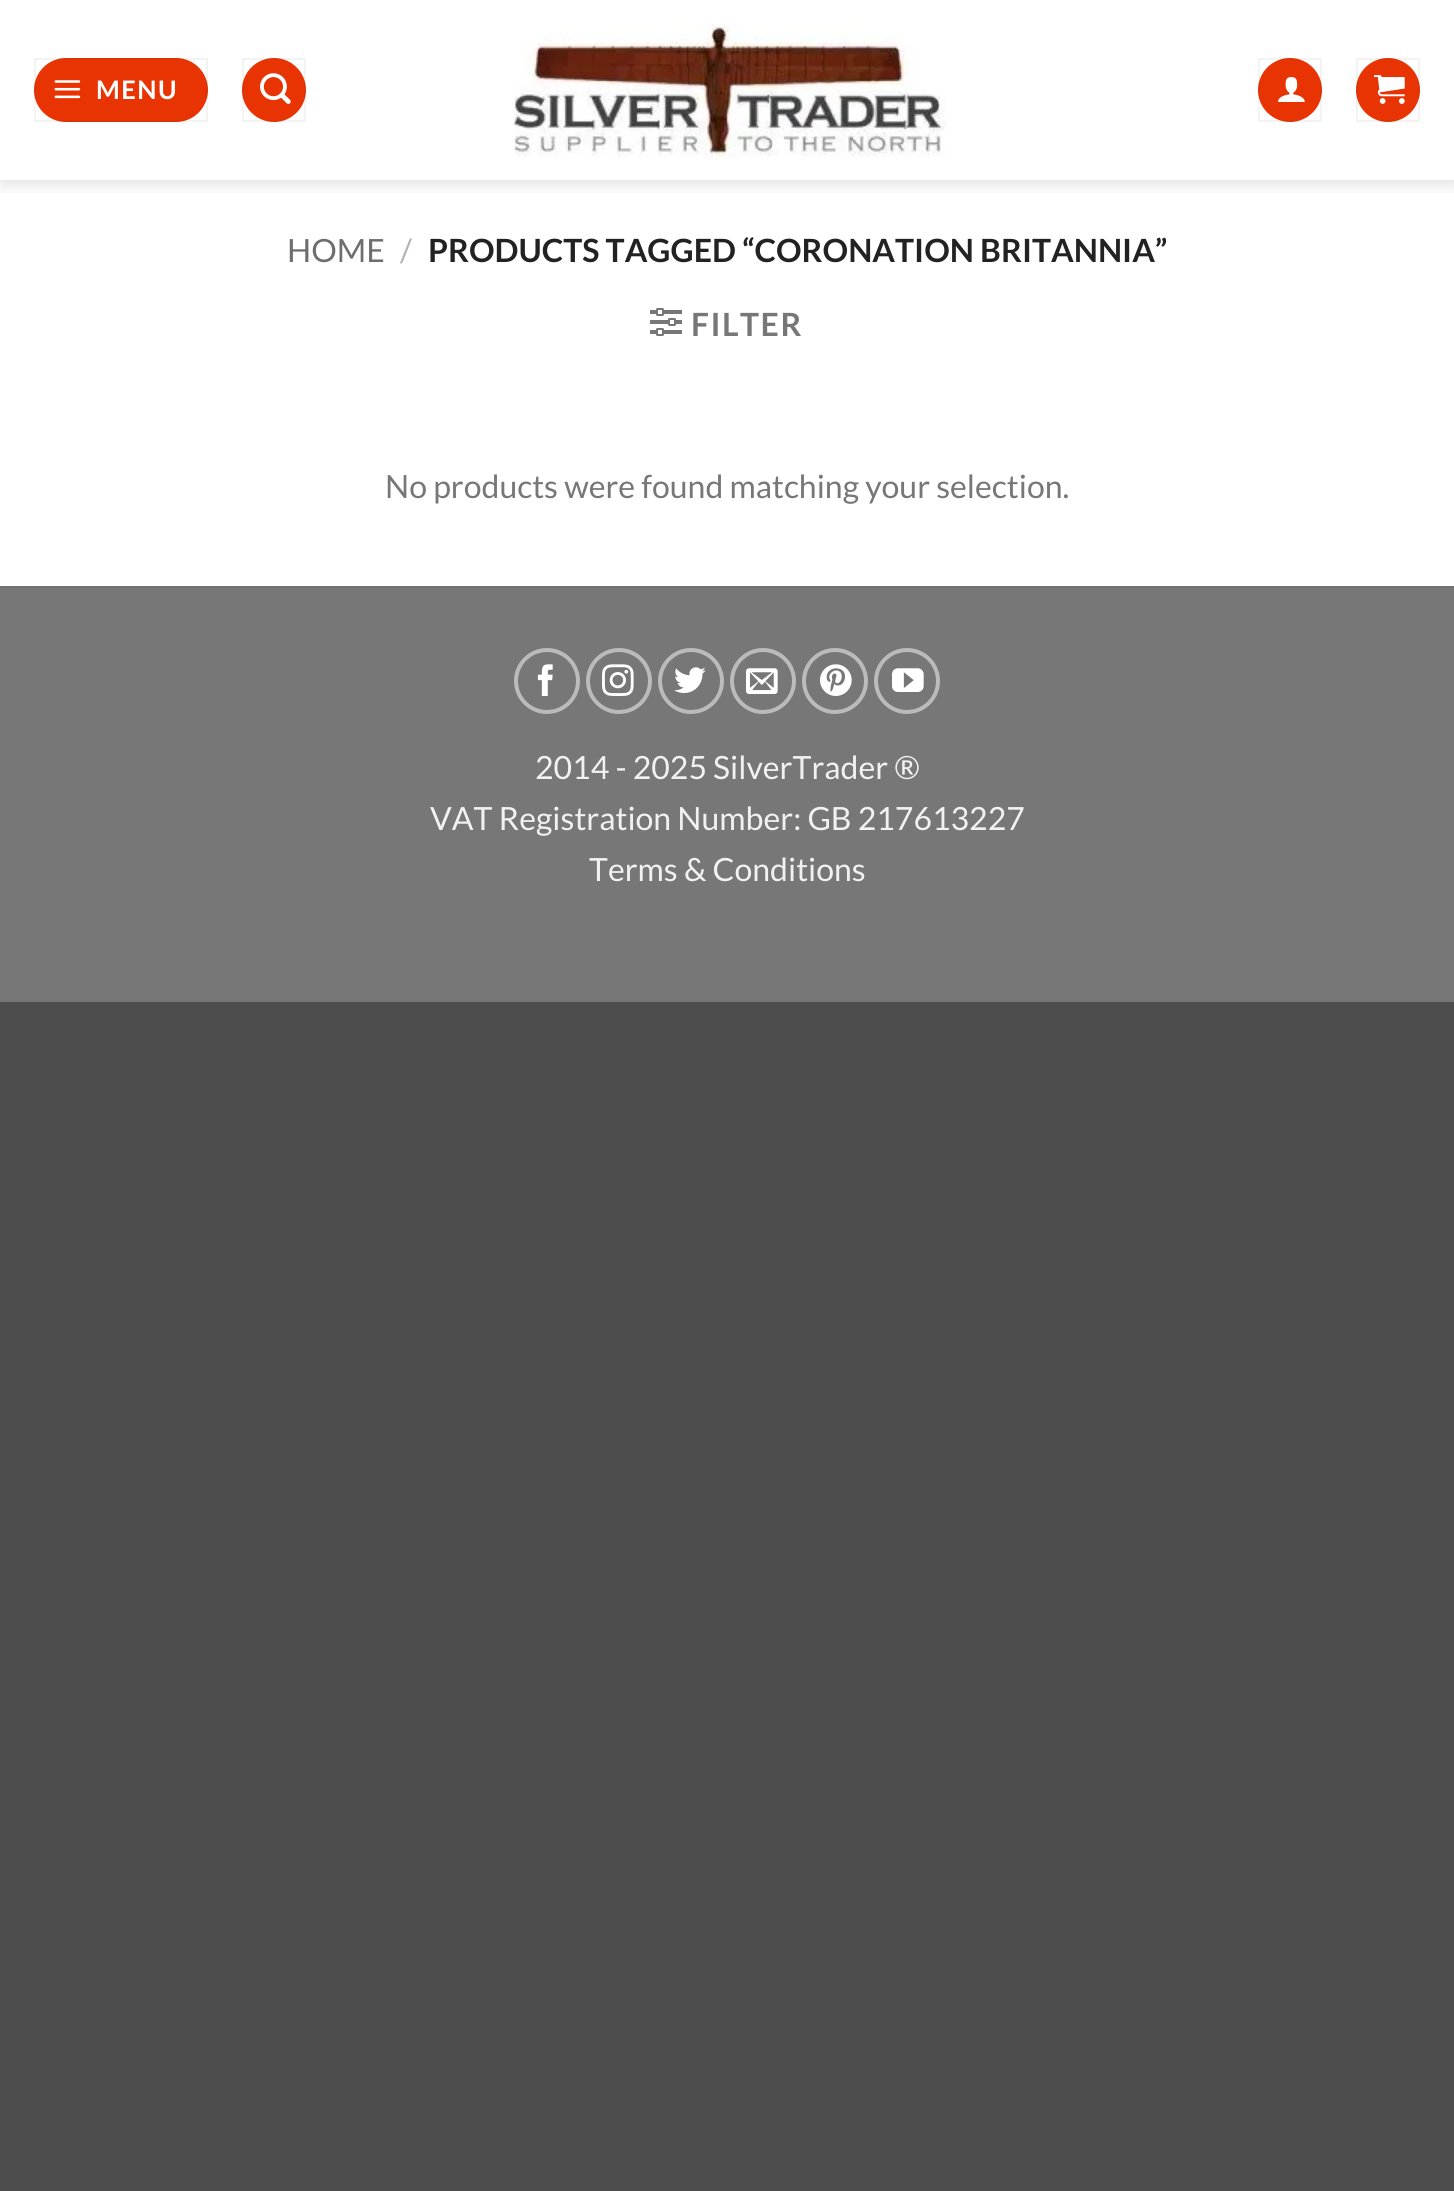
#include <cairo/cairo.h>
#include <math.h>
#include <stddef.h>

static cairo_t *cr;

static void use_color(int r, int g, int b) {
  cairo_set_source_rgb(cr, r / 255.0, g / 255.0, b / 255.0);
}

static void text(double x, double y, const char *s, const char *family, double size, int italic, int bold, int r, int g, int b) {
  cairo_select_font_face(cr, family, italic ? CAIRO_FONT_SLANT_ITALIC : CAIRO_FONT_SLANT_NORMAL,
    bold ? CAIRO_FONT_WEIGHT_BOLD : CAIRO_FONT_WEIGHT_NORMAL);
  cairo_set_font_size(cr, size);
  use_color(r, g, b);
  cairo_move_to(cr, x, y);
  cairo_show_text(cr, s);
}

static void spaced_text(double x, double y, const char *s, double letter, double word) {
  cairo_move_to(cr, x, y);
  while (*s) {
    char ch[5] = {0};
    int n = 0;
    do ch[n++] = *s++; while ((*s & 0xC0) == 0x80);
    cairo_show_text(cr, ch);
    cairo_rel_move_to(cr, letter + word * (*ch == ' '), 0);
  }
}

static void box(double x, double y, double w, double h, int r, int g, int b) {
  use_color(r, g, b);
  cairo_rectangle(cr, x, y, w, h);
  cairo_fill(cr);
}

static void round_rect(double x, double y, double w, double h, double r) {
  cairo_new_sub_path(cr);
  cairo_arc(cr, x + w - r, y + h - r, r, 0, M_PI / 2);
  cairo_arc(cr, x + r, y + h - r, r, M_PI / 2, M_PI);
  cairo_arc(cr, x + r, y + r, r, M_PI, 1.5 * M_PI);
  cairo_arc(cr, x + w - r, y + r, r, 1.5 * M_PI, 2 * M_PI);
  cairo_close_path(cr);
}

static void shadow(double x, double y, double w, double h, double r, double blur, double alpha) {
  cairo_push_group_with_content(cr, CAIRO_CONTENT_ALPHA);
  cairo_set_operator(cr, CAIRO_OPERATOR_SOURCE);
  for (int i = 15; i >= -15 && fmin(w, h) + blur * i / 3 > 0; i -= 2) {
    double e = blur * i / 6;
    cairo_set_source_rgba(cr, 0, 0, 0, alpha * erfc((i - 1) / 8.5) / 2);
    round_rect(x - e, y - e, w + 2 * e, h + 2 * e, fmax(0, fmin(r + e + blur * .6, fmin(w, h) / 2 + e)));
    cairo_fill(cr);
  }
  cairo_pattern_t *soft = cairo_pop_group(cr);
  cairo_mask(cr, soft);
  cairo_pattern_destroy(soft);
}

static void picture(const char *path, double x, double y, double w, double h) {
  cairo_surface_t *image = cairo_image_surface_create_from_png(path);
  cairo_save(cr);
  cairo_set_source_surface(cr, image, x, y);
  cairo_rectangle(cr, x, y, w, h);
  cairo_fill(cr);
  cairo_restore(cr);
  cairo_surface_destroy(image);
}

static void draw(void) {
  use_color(77, 77, 77);
  cairo_paint(cr);
  box(0, 0, 1454, 586, 255, 255, 255);
  cairo_save(cr);
  cairo_rectangle(cr, 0, 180, 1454, 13);
  cairo_clip(cr);
  use_color(0, 0, 0);
  shadow(2, 2, 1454, 180, 0, 10, 0.15);
  cairo_restore(cr);
  use_color(232, 52, 3);
  round_rect(34, 58, 174, 64, 32);
  cairo_fill(cr);
  cairo_rectangle(cr, 35, 59, 172, 62);
  cairo_set_source_rgba(cr, 0, 0, 0, 0.05);
  cairo_stroke(cr);
  picture("img_01.png", 54, 80, 27, 19);
  use_color(232, 52, 3);
  cairo_arc(cr, 274, 90, 32, 0, 2 * M_PI);
  cairo_fill(cr);
  cairo_rectangle(cr, 243, 59, 62, 62);
  cairo_set_source_rgba(cr, 0, 0, 0, 0.05);
  cairo_stroke(cr);
  picture("img_02.png", 260, 73, 31, 31);
  picture("img_03.png", 513, 23, 433, 136);
  use_color(232, 52, 3);
  cairo_arc(cr, 1290, 90, 32, 0, 2 * M_PI);
  cairo_fill(cr);
  cairo_rectangle(cr, 1259, 59, 62, 62);
  cairo_set_source_rgba(cr, 0, 0, 0, 0.05);
  cairo_stroke(cr);
  picture("img_04.png", 1278, 77, 27, 25);
  use_color(232, 52, 3);
  cairo_arc(cr, 1388, 90, 32, 0, 2 * M_PI);
  cairo_fill(cr);
  cairo_rectangle(cr, 1357, 59, 62, 62);
  cairo_set_source_rgba(cr, 0, 0, 0, 0.05);
  cairo_stroke(cr);
  picture("img_05.png", 1374, 75, 31, 29);
  picture("img_06.png", 650, 308, 32, 28);
  box(0, 588, 1454, 414, 119, 119, 119);
  box(0, 586, 1454, 2, 113, 113, 113);
  cairo_arc(cr, 547, 681, 31, 0, 2 * M_PI);
  use_color(187, 187, 187);
  cairo_set_line_width(cr, 4);
  cairo_stroke(cr);
  picture("img_07.png", 537, 664, 16, 32);
  cairo_arc(cr, 619, 681, 31, 0, 2 * M_PI);
  cairo_stroke(cr);
  picture("img_08.png", 602, 664, 32, 32);
  cairo_arc(cr, 691, 681, 31, 0, 2 * M_PI);
  cairo_stroke(cr);
  picture("img_09.png", 674, 667, 32, 26);
  cairo_arc(cr, 763, 681, 31, 0, 2 * M_PI);
  cairo_stroke(cr);
  picture("img_10.png", 746, 668, 32, 26);
  cairo_arc(cr, 835, 681, 31, 0, 2 * M_PI);
  cairo_stroke(cr);
  picture("img_11.png", 820, 664, 32, 32);
  cairo_arc(cr, 907, 681, 31, 0, 2 * M_PI);
  cairo_stroke(cr);
  picture("img_12.png", 892, 668, 32, 24);
  cairo_select_font_face(cr, "Lato", CAIRO_FONT_SLANT_NORMAL, CAIRO_FONT_WEIGHT_BOLD);
  cairo_set_font_size(cr, 25.5);
  use_color(255, 255, 255);
  spaced_text(96, 99, "MENU", 1.5, 0);
  text(287, 262, "HOME", "Lato", 32, 0, 0, 110, 110, 110);
  text(400, 262, "/", "Lato", 32, 0, 0, 178, 178, 178);
  text(428, 262, "PRODUCTS TAGGED “CORONATION BRITANNIA”", "Lato", 32, 0, 1, 34, 34, 34);
  use_color(119, 119, 119);
  spaced_text(691, 336, "FILTER", 1.5, 0);
  text(385, 498, "No products were found matching your selection.", "Lato", 32, 0, 0, 119, 119, 119);
  text(535, 779, "2014 - 2025 SilverTrader ®", "Lato", 32, 0, 0, 241, 241, 241);
  text(430, 830, "VAT Registration Number: GB 217613227", "Lato", 32, 0, 0, 241, 241, 241);
  text(589, 881, "Terms & Conditions", "Lato", 32, 0, 0, 241, 241, 241);
}

int main(void) {
  cairo_surface_t *surface = cairo_image_surface_create(CAIRO_FORMAT_RGB24, 1454, 2191);
  cr = cairo_create(surface);
  cairo_font_options_t *options = cairo_font_options_create();
  cairo_font_options_set_hint_metrics(options, CAIRO_HINT_METRICS_OFF);
  cairo_font_options_set_hint_style(options, CAIRO_HINT_STYLE_NONE);
  cairo_set_font_options(cr, options);
  cairo_set_miter_limit(cr, 4);
  draw();
  cairo_surface_write_to_png(surface, "out.png");
  cairo_font_options_destroy(options);
  cairo_destroy(cr);
  cairo_surface_destroy(surface);
  return 0;
}
